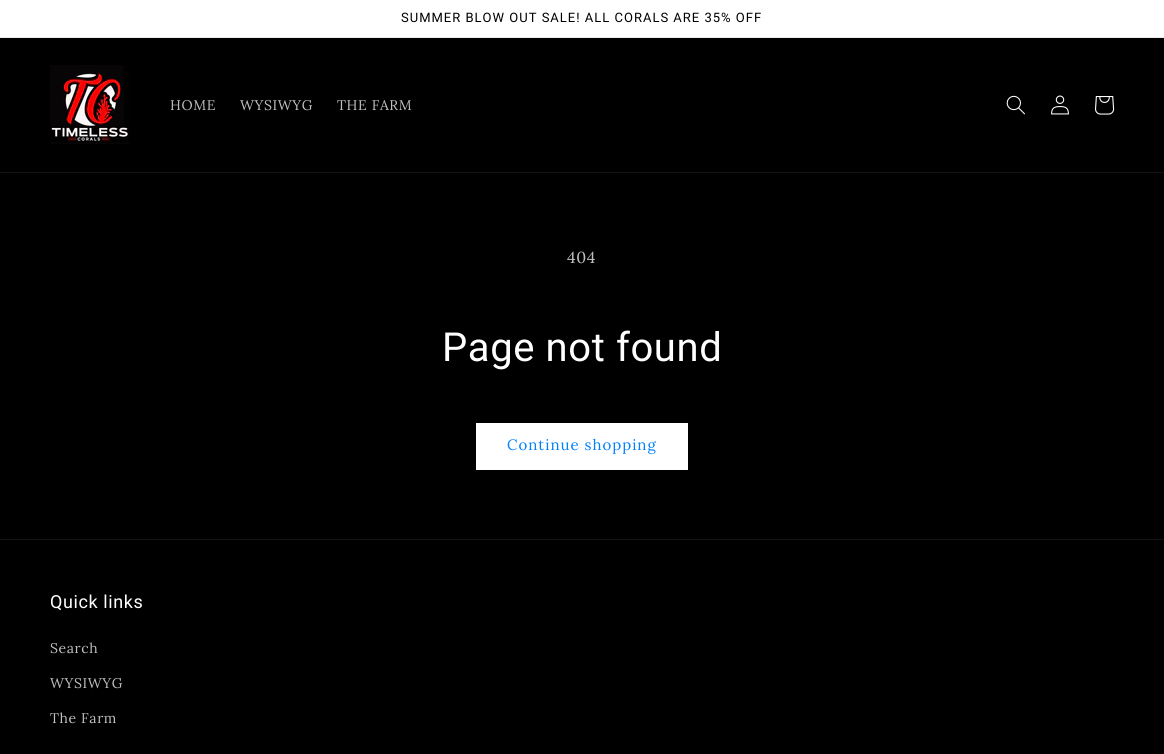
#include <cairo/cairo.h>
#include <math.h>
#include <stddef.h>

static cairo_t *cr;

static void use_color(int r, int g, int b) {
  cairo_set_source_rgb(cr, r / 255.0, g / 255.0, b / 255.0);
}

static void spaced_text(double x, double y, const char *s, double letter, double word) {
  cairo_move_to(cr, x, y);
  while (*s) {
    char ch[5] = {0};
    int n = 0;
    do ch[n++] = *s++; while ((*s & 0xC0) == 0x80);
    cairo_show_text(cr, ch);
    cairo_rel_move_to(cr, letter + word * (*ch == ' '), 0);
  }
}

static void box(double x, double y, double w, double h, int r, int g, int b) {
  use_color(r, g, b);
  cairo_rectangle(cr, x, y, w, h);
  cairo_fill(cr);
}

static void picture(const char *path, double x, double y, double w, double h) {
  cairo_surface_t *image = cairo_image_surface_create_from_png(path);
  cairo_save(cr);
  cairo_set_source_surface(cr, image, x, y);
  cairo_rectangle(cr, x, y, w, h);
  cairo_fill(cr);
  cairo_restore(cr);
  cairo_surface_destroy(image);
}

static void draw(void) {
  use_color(0, 0, 0);
  cairo_paint(cr);
  box(0, 0, 1164, 37, 255, 255, 255);
  box(0, 37, 1164, 1, 235, 235, 235);
  box(0, 172, 1164, 1, 20, 20, 20);
  picture("img_01.png", 50, 65, 80, 79);
  picture("img_02.png", 1006, 95, 19, 20);
  picture("img_03.png", 1051, 95, 18, 20);
  picture("img_04.png", 1095, 96, 20, 19);
  cairo_rectangle(cr, 476.5, 423.5, 211, 46);
  use_color(255, 255, 255);
  cairo_set_line_width(cr, 1);
  cairo_stroke(cr);
  box(477, 424, 210, 45, 255, 255, 255);
  box(0, 539, 1164, 1, 20, 20, 20);
  cairo_select_font_face(cr, "Roboto", CAIRO_FONT_SLANT_NORMAL, CAIRO_FONT_WEIGHT_NORMAL);
  cairo_set_font_size(cr, 13);
  use_color(0, 0, 0);
  spaced_text(401, 22, "SUMMER BLOW OUT SALE! ALL CORALS ARE 35% OFF", 1, 0);
  cairo_select_font_face(cr, "Lora", CAIRO_FONT_SLANT_NORMAL, CAIRO_FONT_WEIGHT_NORMAL);
  cairo_set_font_size(cr, 14);
  use_color(191, 191, 191);
  spaced_text(170, 110, "HOME", 0.6, 0);
  spaced_text(240, 110, "WYSIWYG", 0.6, 0);
  spaced_text(337, 110, "THE FARM", 0.6, 0);
  cairo_set_font_size(cr, 16);
  spaced_text(567, 263, "404", 0.6, 0);
  cairo_select_font_face(cr, "Roboto", CAIRO_FONT_SLANT_NORMAL, CAIRO_FONT_WEIGHT_NORMAL);
  cairo_set_font_size(cr, 40);
  use_color(255, 255, 255);
  spaced_text(442, 361, "Page not found", 0.6, 0);
  cairo_select_font_face(cr, "Lora", CAIRO_FONT_SLANT_NORMAL, CAIRO_FONT_WEIGHT_NORMAL);
  cairo_set_font_size(cr, 15);
  use_color(0, 129, 255);
  spaced_text(507, 450, "Continue shopping", 1, 0);
  cairo_select_font_face(cr, "Roboto", CAIRO_FONT_SLANT_NORMAL, CAIRO_FONT_WEIGHT_NORMAL);
  cairo_set_font_size(cr, 18);
  use_color(255, 255, 255);
  spaced_text(50, 608, "Quick links", 0.6, 0);
  cairo_select_font_face(cr, "Lora", CAIRO_FONT_SLANT_NORMAL, CAIRO_FONT_WEIGHT_NORMAL);
  cairo_set_font_size(cr, 14);
  use_color(191, 191, 191);
  spaced_text(50, 653, "Search", 0.6, 0);
  spaced_text(50, 688, "WYSIWYG", 0.6, 0);
  spaced_text(50, 723, "The Farm", 0.6, 0);
}

int main(void) {
  cairo_surface_t *surface = cairo_image_surface_create(CAIRO_FORMAT_RGB24, 1164, 754);
  cr = cairo_create(surface);
  cairo_font_options_t *options = cairo_font_options_create();
  cairo_font_options_set_hint_metrics(options, CAIRO_HINT_METRICS_OFF);
  cairo_font_options_set_hint_style(options, CAIRO_HINT_STYLE_NONE);
  cairo_set_font_options(cr, options);
  cairo_set_miter_limit(cr, 4);
  draw();
  cairo_surface_write_to_png(surface, "out.png");
  cairo_font_options_destroy(options);
  cairo_destroy(cr);
  cairo_surface_destroy(surface);
  return 0;
}
